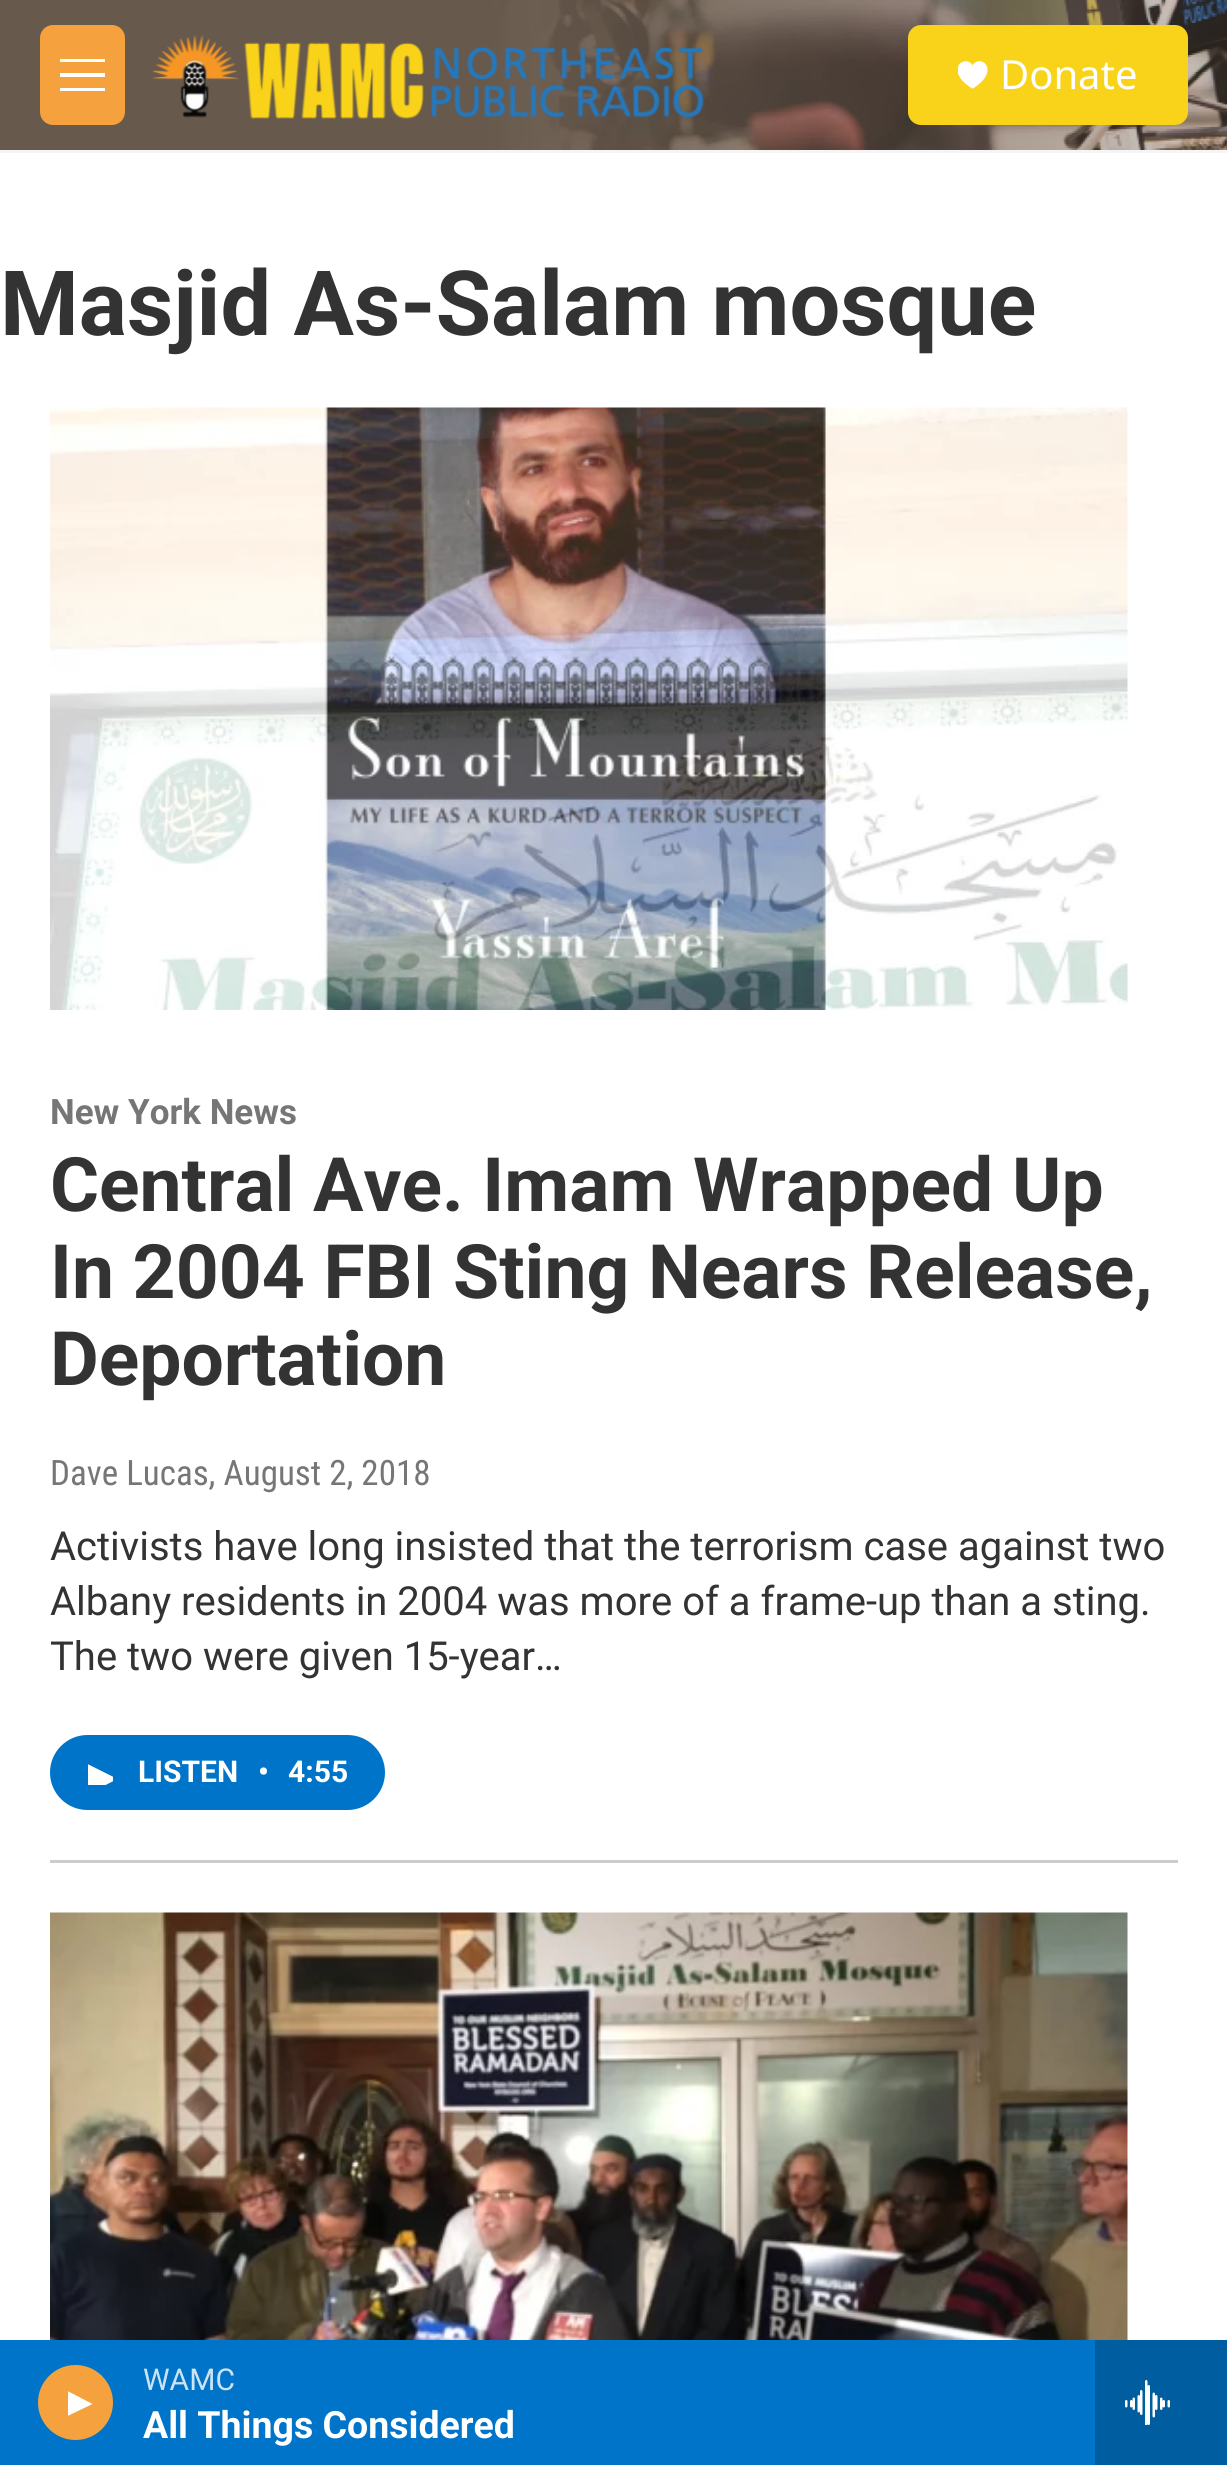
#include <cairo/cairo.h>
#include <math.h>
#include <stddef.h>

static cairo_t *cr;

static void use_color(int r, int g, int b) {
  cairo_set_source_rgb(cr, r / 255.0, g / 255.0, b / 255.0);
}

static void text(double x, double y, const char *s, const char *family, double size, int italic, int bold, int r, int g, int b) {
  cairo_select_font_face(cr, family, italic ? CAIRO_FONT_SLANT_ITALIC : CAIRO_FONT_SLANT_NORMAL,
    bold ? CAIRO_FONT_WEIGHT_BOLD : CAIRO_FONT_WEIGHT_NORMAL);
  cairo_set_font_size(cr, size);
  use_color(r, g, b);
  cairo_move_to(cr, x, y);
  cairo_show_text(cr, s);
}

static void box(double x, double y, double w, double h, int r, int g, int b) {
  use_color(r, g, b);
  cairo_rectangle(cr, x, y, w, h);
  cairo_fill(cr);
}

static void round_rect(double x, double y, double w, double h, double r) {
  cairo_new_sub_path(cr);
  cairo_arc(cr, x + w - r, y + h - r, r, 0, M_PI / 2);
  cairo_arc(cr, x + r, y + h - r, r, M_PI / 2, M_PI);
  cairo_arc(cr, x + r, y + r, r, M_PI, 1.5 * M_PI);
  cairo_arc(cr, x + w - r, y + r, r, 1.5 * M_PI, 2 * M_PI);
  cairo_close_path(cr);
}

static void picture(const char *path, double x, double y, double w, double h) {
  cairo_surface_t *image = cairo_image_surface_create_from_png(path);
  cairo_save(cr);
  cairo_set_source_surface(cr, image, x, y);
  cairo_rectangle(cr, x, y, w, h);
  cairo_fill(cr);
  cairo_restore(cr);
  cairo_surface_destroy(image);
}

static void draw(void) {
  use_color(255, 255, 255);
  cairo_paint(cr);
  box(0, 150, 1227, 3, 245, 245, 245);
  picture("img_01.png", 0, 0, 1227, 150);
  use_color(245, 161, 61);
  round_rect(40, 25, 85, 100, 13);
  cairo_fill(cr);
  use_color(255, 255, 255);
  cairo_set_fill_rule(cr, CAIRO_FILL_RULE_EVEN_ODD);
  cairo_new_path(cr);
  cairo_move_to(cr, 60, 77);
  cairo_line_to(cr, 60, 73);
  cairo_line_to(cr, 105, 73);
  cairo_line_to(cr, 105, 77);
  cairo_close_path(cr);
  cairo_move_to(cr, 60, 62);
  cairo_line_to(cr, 60, 59);
  cairo_line_to(cr, 105, 59);
  cairo_line_to(cr, 105, 62);
  cairo_close_path(cr);
  cairo_move_to(cr, 60, 91);
  cairo_line_to(cr, 60, 88);
  cairo_line_to(cr, 105, 88);
  cairo_line_to(cr, 105, 91);
  cairo_close_path(cr);
  cairo_fill(cr);
  picture("img_02.png", 151, 35, 553, 84);
  use_color(249, 211, 25);
  round_rect(908, 25, 280, 100, 13);
  cairo_fill(cr);
  picture("img_03.png", 958, 61, 30, 28);
  box(0, 2340, 1095, 125, 0, 116, 200);
  use_color(245, 161, 61);
  cairo_arc(cr, 75.5, 2402.5, 37.5, 0, 2 * M_PI);
  cairo_fill(cr);
  cairo_save(cr);
  cairo_set_fill_rule(cr, CAIRO_FILL_RULE_WINDING);
  cairo_rectangle(cr, 68, 2390, 25, 28);
  cairo_clip(cr);
  use_color(255, 255, 255);
  cairo_new_path(cr);
  cairo_move_to(cr, 67.5, 2391);
  cairo_line_to(cr, 92.5, 2404);
  cairo_line_to(cr, 67.5, 2416);
  cairo_close_path(cr);
  cairo_fill(cr);
  cairo_restore(cr);
  box(1095, 2340, 132, 125, 0, 93, 160);
  picture("img_04.png", 1125, 2380, 45, 45);
  box(50, 1860, 1128, 3, 204, 204, 204);
  picture("img_05.png", 50, 407, 1078, 603);
  use_color(0, 116, 200);
  round_rect(50, 1735, 335, 75, 37.5);
  cairo_fill(cr);
  cairo_save(cr);
  cairo_set_fill_rule(cr, CAIRO_FILL_RULE_WINDING);
  cairo_rectangle(cr, 88, 1760, 25, 25);
  cairo_clip(cr);
  use_color(255, 255, 255);
  cairo_new_path(cr);
  cairo_move_to(cr, 87.5, 1764);
  cairo_line_to(cr, 117.5, 1779);
  cairo_line_to(cr, 87.5, 1794);
  cairo_close_path(cr);
  cairo_fill(cr);
  cairo_restore(cr);
  picture("img_06.png", 50, 1912, 1078, 428);
  text(1000, 89, "Donate", "Noto Sans", 40, 0, 0, 255, 255, 255);
  text(143, 2390, "WAMC", "Roboto", 30, 0, 0, 204, 227, 244);
  text(143, 2438, "All Things Considered", "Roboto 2", 37.5, 0, 1, 255, 255, 255);
  text(0, 335, "Masjid As-Salam mosque", "Roboto", 90, 0, 1, 51, 51, 51);
  text(50, 1124, "New York News", "Roboto", 35, 0, 1, 118, 118, 118);
  text(50, 1211, "Central Ave. Imam Wrapped Up", "Roboto", 75, 0, 1, 51, 51, 51);
  text(50, 1298, "In 2004 FBI Sting Nears Release,", "Roboto", 75, 0, 1, 51, 51, 51);
  text(50, 1385, "Deportation", "Roboto", 75, 0, 1, 51, 51, 51);
  text(50, 1485, "Dave Lucas, August 2, 2018", "Roboto Condensed", 35, 0, 0, 118, 118, 118);
  text(50, 1560, "Activists have long insisted that the terrorism case against two", "Roboto", 40, 0, 0, 51, 51, 51);
  text(50, 1615, "Albany residents in 2004 was more of a frame-up than a sting.", "Roboto", 40, 0, 0, 51, 51, 51);
  text(50, 1670, "The two were given 15-year…", "Roboto", 40, 0, 0, 51, 51, 51);
  text(138, 1782, "LISTEN", "Roboto 2", 30, 0, 1, 255, 255, 255);
  text(258, 1782, "•", "Roboto 2", 30, 0, 1, 255, 255, 255);
  text(288, 1782, "4:55", "Roboto 2", 30, 0, 1, 255, 255, 255);
}

int main(void) {
  cairo_surface_t *surface = cairo_image_surface_create(CAIRO_FORMAT_RGB24, 1227, 2465);
  cr = cairo_create(surface);
  cairo_font_options_t *options = cairo_font_options_create();
  cairo_font_options_set_hint_metrics(options, CAIRO_HINT_METRICS_OFF);
  cairo_font_options_set_hint_style(options, CAIRO_HINT_STYLE_NONE);
  cairo_set_font_options(cr, options);
  cairo_set_miter_limit(cr, 4);
  draw();
  cairo_surface_write_to_png(surface, "out.png");
  cairo_font_options_destroy(options);
  cairo_destroy(cr);
  cairo_surface_destroy(surface);
  return 0;
}
